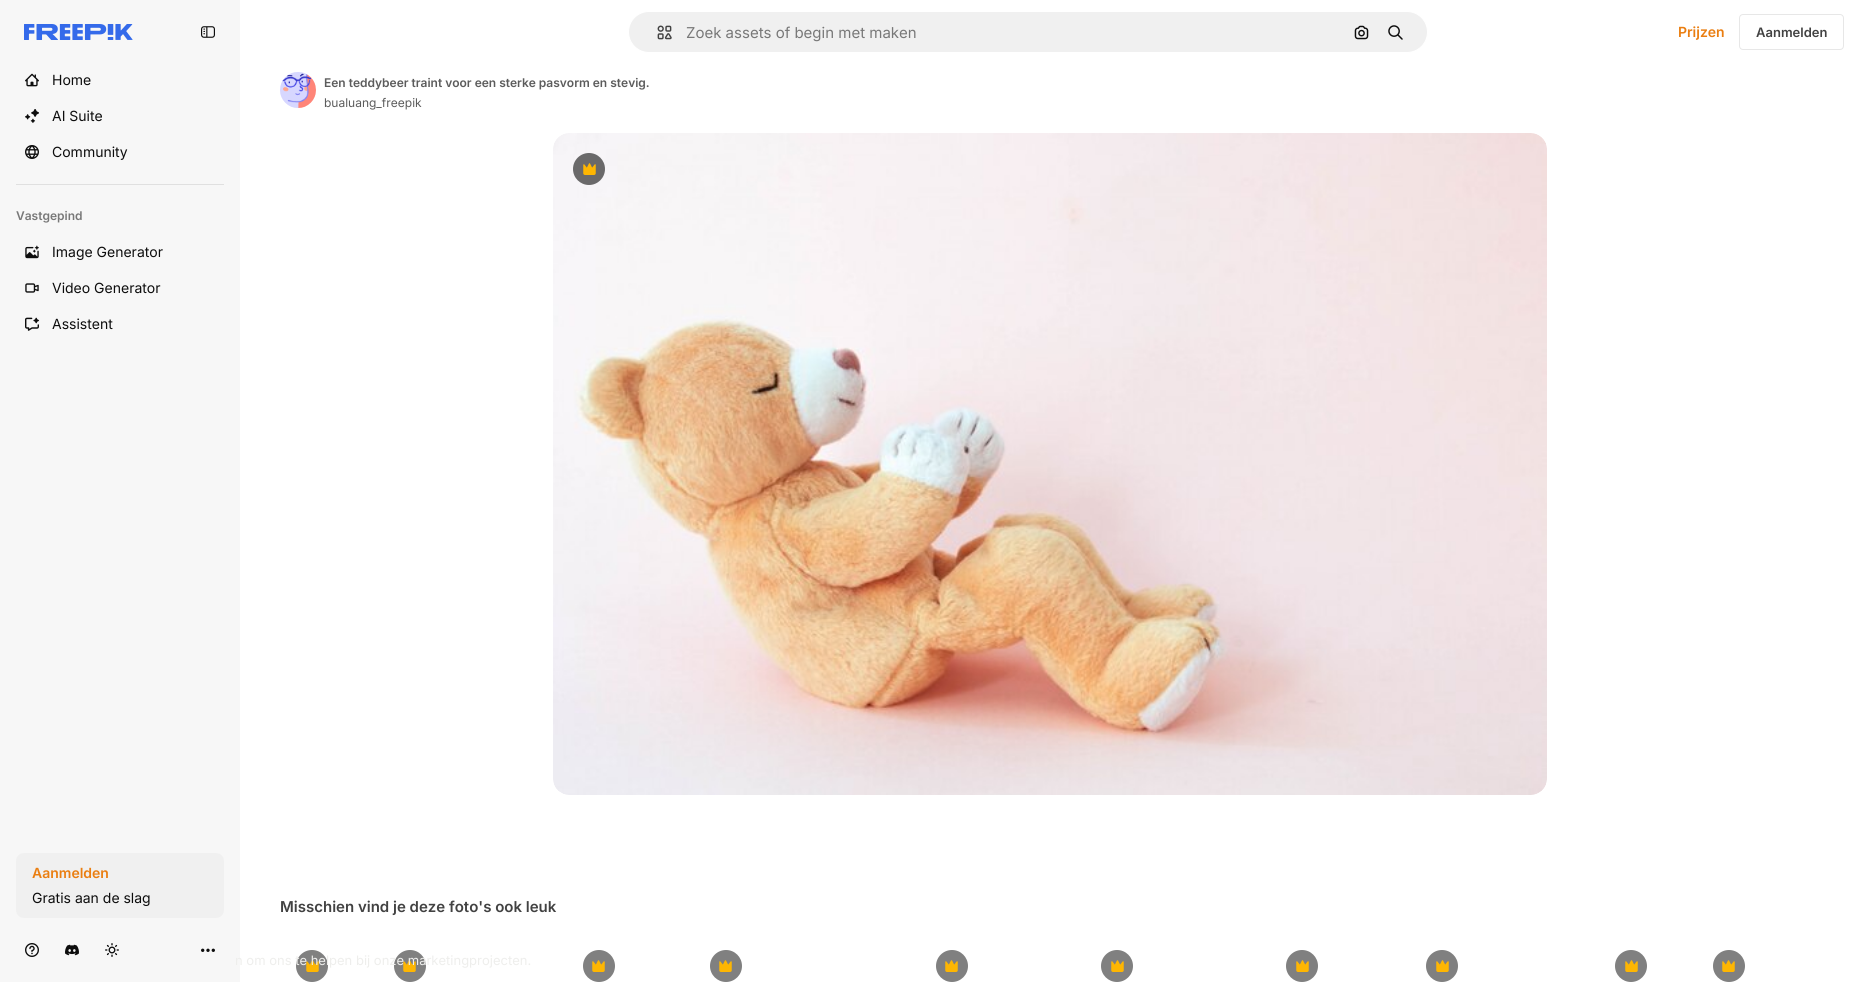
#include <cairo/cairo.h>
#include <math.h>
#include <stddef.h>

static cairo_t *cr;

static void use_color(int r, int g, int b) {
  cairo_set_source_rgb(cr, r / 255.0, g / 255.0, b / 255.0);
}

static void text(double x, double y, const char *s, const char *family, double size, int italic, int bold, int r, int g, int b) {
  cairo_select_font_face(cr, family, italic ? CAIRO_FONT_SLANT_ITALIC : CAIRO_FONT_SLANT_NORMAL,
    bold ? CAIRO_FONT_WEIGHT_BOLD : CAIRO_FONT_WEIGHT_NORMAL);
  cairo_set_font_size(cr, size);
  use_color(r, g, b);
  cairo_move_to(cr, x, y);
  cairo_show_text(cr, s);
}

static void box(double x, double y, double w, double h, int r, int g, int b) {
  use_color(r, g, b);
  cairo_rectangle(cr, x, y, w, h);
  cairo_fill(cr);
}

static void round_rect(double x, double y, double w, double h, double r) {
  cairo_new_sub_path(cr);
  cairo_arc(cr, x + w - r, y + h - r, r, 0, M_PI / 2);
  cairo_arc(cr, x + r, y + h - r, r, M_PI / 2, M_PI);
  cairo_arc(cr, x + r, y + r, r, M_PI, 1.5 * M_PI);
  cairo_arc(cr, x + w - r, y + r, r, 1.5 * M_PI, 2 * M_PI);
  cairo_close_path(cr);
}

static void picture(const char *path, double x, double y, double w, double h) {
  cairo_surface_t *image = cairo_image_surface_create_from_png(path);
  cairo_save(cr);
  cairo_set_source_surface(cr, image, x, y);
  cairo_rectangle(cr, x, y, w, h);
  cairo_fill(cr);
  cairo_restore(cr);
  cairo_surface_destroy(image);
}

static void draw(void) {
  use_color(255, 255, 255);
  cairo_paint(cr);
  box(0, 0, 240, 982, 247, 247, 247);
  picture("img_01.png", 24, 24, 109, 16);
  picture("img_02.png", 201, 26, 14, 12);
  picture("img_03.png", 25, 73, 14, 14);
  picture("img_04.png", 25, 109, 14, 14);
  picture("img_05.png", 25, 145, 14, 14);
  box(16, 184, 208, 1, 224, 224, 224);
  picture("img_06.png", 25, 245, 14, 14);
  picture("img_07.png", 25, 283, 14, 10);
  picture("img_08.png", 25, 317, 14, 14);
  use_color(240, 240, 240);
  round_rect(16, 853, 208, 65, 8);
  cairo_fill(cr);
  picture("img_09.png", 25, 943, 14, 14);
  picture("img_10.png", 65, 944, 14, 12);
  picture("img_11.png", 105, 943, 14, 14);
  picture("img_12.png", 201, 948, 14, 4);
  round_rect(628.5, 11.5, 799, 41, 20.5);
  cairo_fill_preserve(cr);
  use_color(255, 255, 255);
  cairo_set_line_width(cr, 1);
  cairo_stroke(cr);
  picture("img_13.png", 657, 25, 15, 15);
  picture("img_14.png", 1354, 25, 15, 15);
  picture("img_15.png", 1388, 25, 15, 15);
  round_rect(1739.5, 14.5, 104, 35, 3.5);
  use_color(231, 231, 231);
  cairo_stroke(cr);
  picture("img_16.png", 280, 72, 36, 36);
  picture("img_17.png", 553, 133, 994, 662);
  cairo_set_source_rgba(cr, 0.051, 0.051, 0.051, 0.6);
  cairo_arc(cr, 589, 169, 16, 0, 2 * M_PI);
  cairo_fill(cr);
  picture("img_18.png", 583, 163, 13, 12);
  use_color(128, 128, 128);
  cairo_arc(cr, 312, 966, 16, 0, 2 * M_PI);
  cairo_fill(cr);
  picture("img_19.png", 306, 960, 13, 12);
  cairo_arc(cr, 410, 966, 16, 0, 2 * M_PI);
  cairo_fill(cr);
  picture("img_19.png", 403, 960, 13, 12);
  cairo_arc(cr, 599, 966, 16, 0, 2 * M_PI);
  cairo_fill(cr);
  picture("img_19.png", 592, 960, 13, 12);
  cairo_arc(cr, 726, 966, 16, 0, 2 * M_PI);
  cairo_fill(cr);
  picture("img_19.png", 719, 960, 13, 12);
  cairo_arc(cr, 952, 966, 16, 0, 2 * M_PI);
  cairo_fill(cr);
  picture("img_19.png", 945, 960, 13, 12);
  cairo_arc(cr, 1117, 966, 16, 0, 2 * M_PI);
  cairo_fill(cr);
  picture("img_19.png", 1111, 960, 13, 12);
  cairo_arc(cr, 1302, 966, 16, 0, 2 * M_PI);
  cairo_fill(cr);
  picture("img_19.png", 1296, 960, 13, 12);
  cairo_arc(cr, 1442, 966, 16, 0, 2 * M_PI);
  cairo_fill(cr);
  picture("img_19.png", 1436, 960, 13, 12);
  cairo_arc(cr, 1631, 966, 16, 0, 2 * M_PI);
  cairo_fill(cr);
  picture("img_19.png", 1625, 960, 13, 12);
  cairo_arc(cr, 1729, 966, 16, 0, 2 * M_PI);
  cairo_fill(cr);
  picture("img_19.png", 1722, 960, 13, 12);
  text(52, 85, "Home", "Inter", 14, 0, 0, 13, 13, 13);
  text(52, 121, "AI Suite", "Inter", 14, 0, 0, 13, 13, 13);
  text(52, 157, "Community", "Inter", 14, 0, 0, 13, 13, 13);
  text(16, 220, "Vastgepind", "Inter SemiBold", 12, 0, 0, 120, 120, 120);
  text(52, 257, "Image Generator", "Inter", 14, 0, 0, 13, 13, 13);
  text(52, 293, "Video Generator", "Inter", 14, 0, 0, 13, 13, 13);
  text(52, 329, "Assistent", "Inter", 14, 0, 0, 13, 13, 13);
  text(32, 878, "Aanmelden", "Inter SemiBold", 14, 0, 0, 234, 126, 17);
  text(32, 903, "Gratis aan de slag", "Inter", 14, 0, 0, 13, 13, 13);
  text(686, 38, "Zoek assets of begin met maken", "Inter", 15, 0, 0, 120, 120, 120);
  text(1678, 37, "Prijzen", "Inter SemiBold", 14, 0, 0, 234, 126, 17);
  text(1756, 37, "Aanmelden", "Inter SemiBold", 13, 0, 0, 66, 66, 66);
  text(324, 87, "Een teddybeer traint voor een sterke pasvorm en stevig.", "Inter SemiBold", 12, 0, 0, 92, 92, 92);
  text(324, 107, "bualuang_freepik", "Inter", 12, 0, 0, 92, 92, 92);
  text(280, 912, "Misschien vind je deze foto's ook leuk", "Inter SemiBold", 15, 0, 0, 66, 66, 66);
  text(235, 965, "n om ons te helpen bij onze marketingprojecten.", "Inter", 13, 0, 0, 238, 238, 236);
}

int main(void) {
  cairo_surface_t *surface = cairo_image_surface_create(CAIRO_FORMAT_RGB24, 1860, 982);
  cr = cairo_create(surface);
  cairo_font_options_t *options = cairo_font_options_create();
  cairo_font_options_set_hint_metrics(options, CAIRO_HINT_METRICS_OFF);
  cairo_font_options_set_hint_style(options, CAIRO_HINT_STYLE_NONE);
  cairo_set_font_options(cr, options);
  cairo_set_miter_limit(cr, 4);
  draw();
  cairo_surface_write_to_png(surface, "out.png");
  cairo_font_options_destroy(options);
  cairo_destroy(cr);
  cairo_surface_destroy(surface);
  return 0;
}
